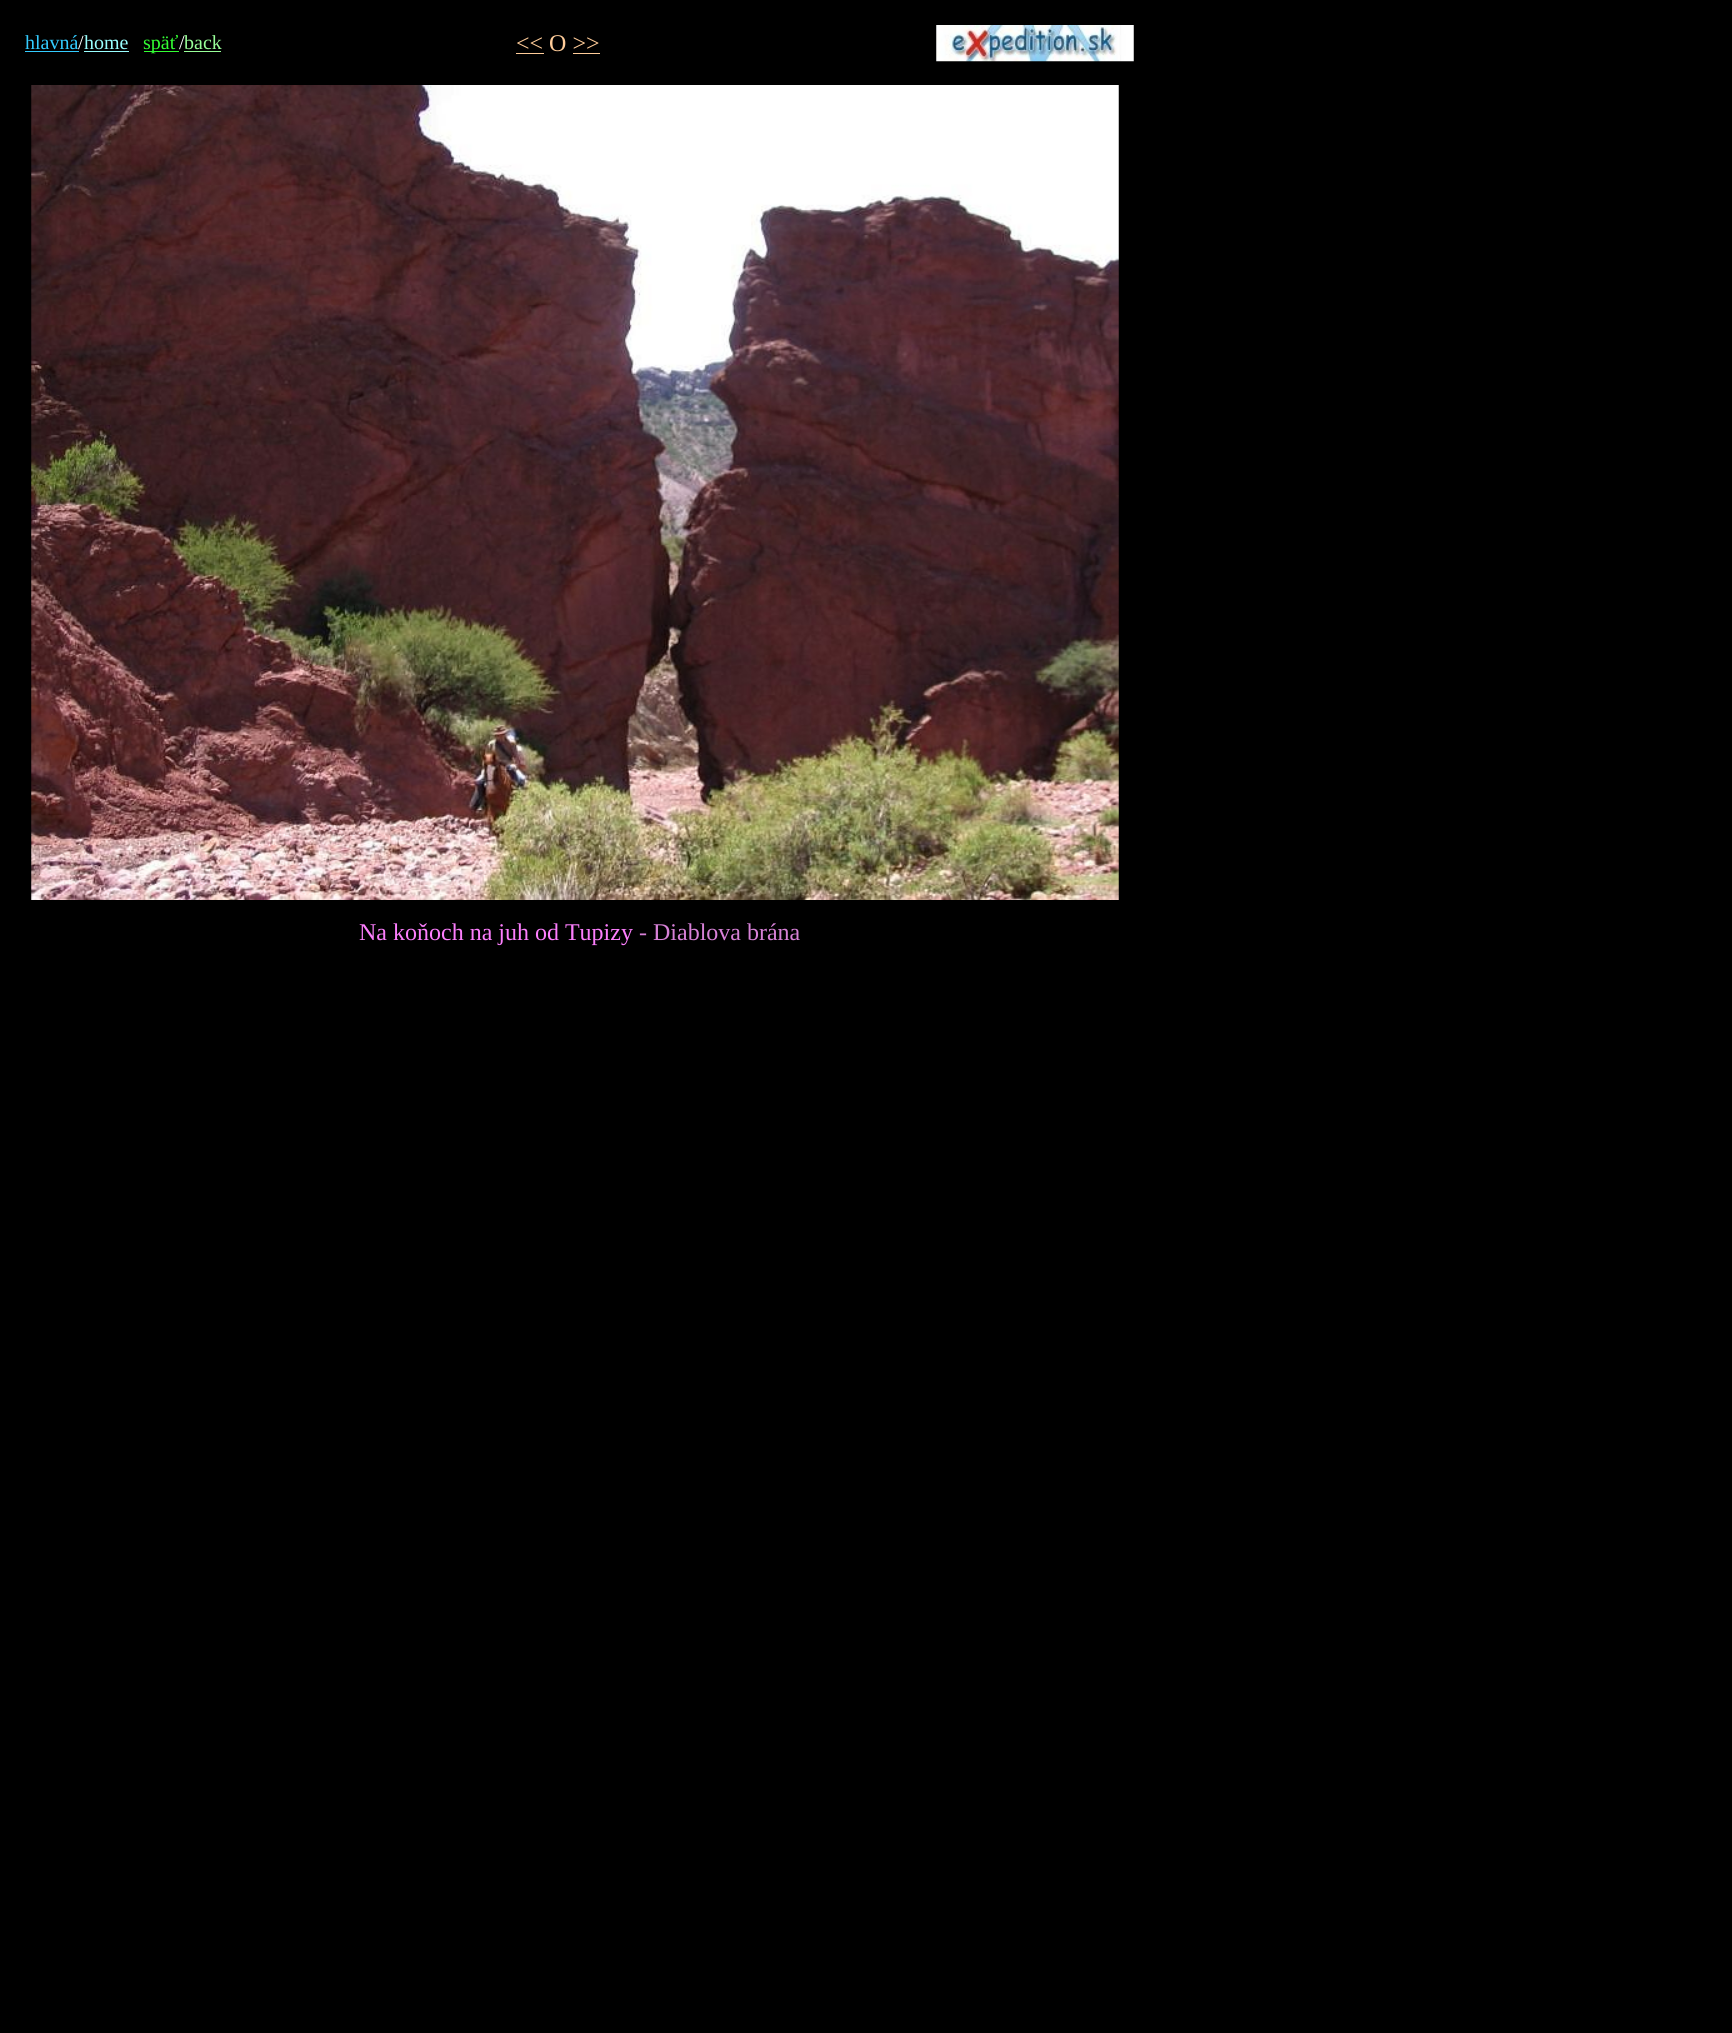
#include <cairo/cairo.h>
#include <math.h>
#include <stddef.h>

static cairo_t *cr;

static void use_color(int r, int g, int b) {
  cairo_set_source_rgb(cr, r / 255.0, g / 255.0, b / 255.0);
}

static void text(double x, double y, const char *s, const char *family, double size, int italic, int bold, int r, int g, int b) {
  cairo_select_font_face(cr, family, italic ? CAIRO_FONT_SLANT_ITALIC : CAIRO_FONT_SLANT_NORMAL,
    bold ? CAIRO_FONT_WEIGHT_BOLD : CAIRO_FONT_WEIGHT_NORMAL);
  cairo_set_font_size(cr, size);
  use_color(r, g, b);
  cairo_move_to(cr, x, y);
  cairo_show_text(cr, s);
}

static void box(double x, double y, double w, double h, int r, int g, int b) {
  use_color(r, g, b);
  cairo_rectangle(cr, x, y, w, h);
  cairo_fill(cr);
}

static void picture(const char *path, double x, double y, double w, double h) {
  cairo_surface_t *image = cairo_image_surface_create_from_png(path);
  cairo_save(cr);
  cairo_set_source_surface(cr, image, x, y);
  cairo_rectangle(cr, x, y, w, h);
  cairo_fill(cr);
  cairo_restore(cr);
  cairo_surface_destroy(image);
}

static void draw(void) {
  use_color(0, 0, 0);
  cairo_paint(cr);
  box(25, 51, 54, 1, 51, 204, 255);
  box(84, 51, 45, 1, 153, 255, 255);
  box(144, 51, 35, 1, 51, 255, 51);
  box(184, 51, 37, 1, 153, 255, 153);
  box(516, 53, 28, 1, 255, 204, 153);
  box(573, 53, 27, 1, 255, 204, 153);
  picture("img_01.png", 936, 25, 198, 37);
  picture("img_02.png", 31, 85, 1088, 815);
  text(25, 49, "hlavná", "Liberation Serif", 20, 0, 0, 51, 204, 255);
  text(78, 49, "/", "Liberation Serif", 20, 0, 0, 255, 255, 255);
  text(84, 49, "home", "Liberation Serif", 20, 0, 0, 153, 255, 255);
  text(143, 49, "späť", "Liberation Serif", 20, 0, 0, 51, 255, 51);
  text(179, 49, "/", "Liberation Serif", 20, 0, 0, 255, 255, 255);
  text(184, 49, "back", "Liberation Serif", 20, 0, 0, 153, 255, 153);
  text(516, 51, "<< O >>", "Liberation Serif", 24, 0, 0, 255, 204, 153);
  text(359, 940, "Na koňoch na juh od Tupizy", "Liberation Serif", 24, 0, 0, 253, 126, 253);
  text(639, 940, "- Diablova brána", "Liberation Serif", 24, 0, 0, 215, 129, 215);
}

int main(void) {
  cairo_surface_t *surface = cairo_image_surface_create(CAIRO_FORMAT_RGB24, 1732, 2033);
  cr = cairo_create(surface);
  cairo_font_options_t *options = cairo_font_options_create();
  cairo_font_options_set_hint_metrics(options, CAIRO_HINT_METRICS_OFF);
  cairo_font_options_set_hint_style(options, CAIRO_HINT_STYLE_NONE);
  cairo_set_font_options(cr, options);
  cairo_set_miter_limit(cr, 4);
  draw();
  cairo_surface_write_to_png(surface, "out.png");
  cairo_font_options_destroy(options);
  cairo_destroy(cr);
  cairo_surface_destroy(surface);
  return 0;
}
